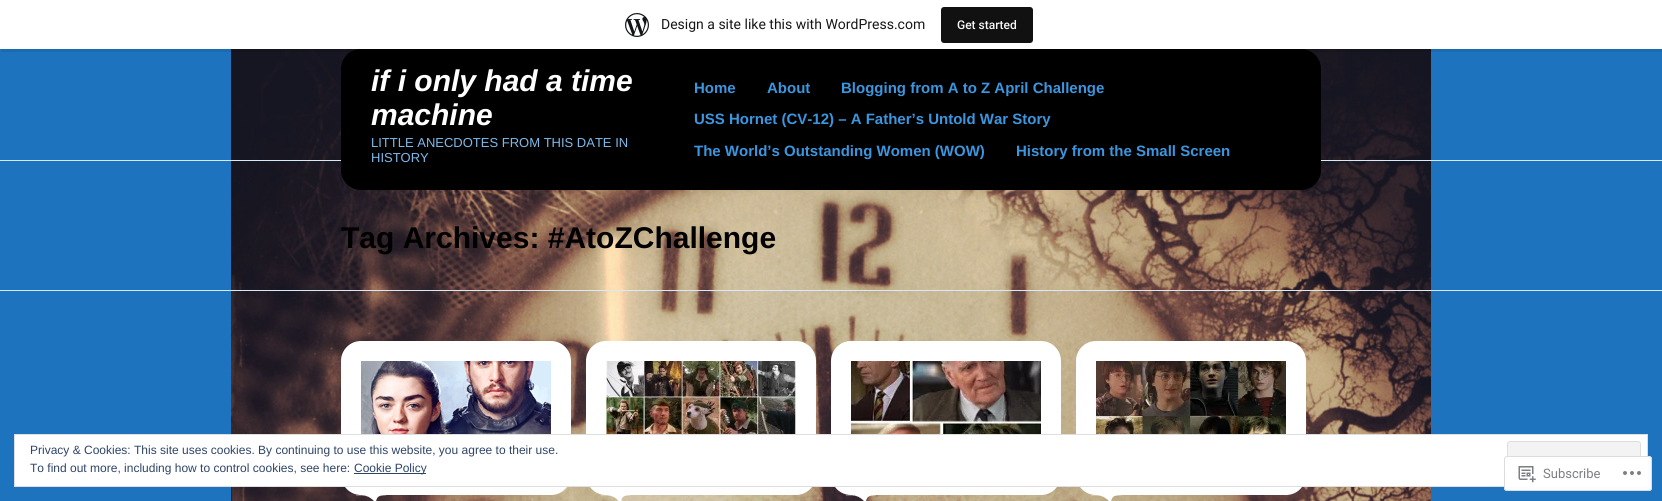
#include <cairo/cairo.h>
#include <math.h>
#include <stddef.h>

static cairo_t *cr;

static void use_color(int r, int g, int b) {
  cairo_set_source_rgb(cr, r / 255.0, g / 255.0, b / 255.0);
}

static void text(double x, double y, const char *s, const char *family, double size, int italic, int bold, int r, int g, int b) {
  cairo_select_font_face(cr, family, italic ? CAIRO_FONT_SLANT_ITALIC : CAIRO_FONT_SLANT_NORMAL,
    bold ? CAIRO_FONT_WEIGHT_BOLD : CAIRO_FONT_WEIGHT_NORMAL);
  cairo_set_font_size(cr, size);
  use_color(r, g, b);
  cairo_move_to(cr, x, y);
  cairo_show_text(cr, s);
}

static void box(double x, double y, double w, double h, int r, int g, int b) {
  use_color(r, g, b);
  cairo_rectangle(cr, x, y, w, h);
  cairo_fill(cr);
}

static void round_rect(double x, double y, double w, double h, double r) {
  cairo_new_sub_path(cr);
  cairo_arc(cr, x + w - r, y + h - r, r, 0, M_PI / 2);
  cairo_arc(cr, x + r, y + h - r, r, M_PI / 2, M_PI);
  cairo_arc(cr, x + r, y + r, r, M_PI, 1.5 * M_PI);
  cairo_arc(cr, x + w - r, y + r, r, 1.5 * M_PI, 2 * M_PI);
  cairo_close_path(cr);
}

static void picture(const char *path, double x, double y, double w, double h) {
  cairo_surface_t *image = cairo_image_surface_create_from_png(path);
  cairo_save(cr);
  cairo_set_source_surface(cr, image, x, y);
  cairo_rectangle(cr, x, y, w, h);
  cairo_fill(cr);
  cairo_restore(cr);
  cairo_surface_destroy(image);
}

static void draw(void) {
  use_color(30, 115, 190);
  cairo_paint(cr);
  picture("img_01.png", 231, 49, 1200, 452);
  box(0, 160, 1662, 1, 216, 234, 249);
  use_color(0, 0, 0);
  round_rect(341, 49, 980, 141, 20);
  cairo_fill(cr);
  cairo_set_source_rgba(cr, 0, 0, 0, 0.08);
  cairo_new_path(cr);
  cairo_move_to(cr, 1, 49);
  cairo_line_to(cr, 1, 52);
  cairo_line_to(cr, 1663, 52);
  cairo_line_to(cr, 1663, 3);
  cairo_line_to(cr, 1662, 3);
  cairo_line_to(cr, 1662, 49);
  cairo_close_path(cr);
  cairo_fill(cr);
  box(0, 0, 1662, 49, 255, 255, 255);
  picture("img_02.png", 625, 13, 24, 24);
  use_color(17, 17, 17);
  round_rect(941, 7, 92, 36, 3);
  cairo_fill(cr);
  box(0, 290, 1662, 1, 216, 234, 249);
  use_color(255, 255, 255);
  round_rect(341, 341, 230, 154, 20);
  cairo_fill(cr);
  round_rect(586, 341, 230, 154, 20);
  cairo_fill(cr);
  round_rect(831, 341, 230, 154, 20);
  cairo_fill(cr);
  round_rect(1076, 341, 230, 154, 20);
  cairo_fill(cr);
  cairo_rectangle(cr, 14.5, 434.5, 1633, 52);
  cairo_fill_preserve(cr);
  use_color(222, 222, 222);
  cairo_set_line_width(cr, 1);
  cairo_stroke(cr);
  use_color(243, 243, 243);
  round_rect(1507.5, 441.5, 133, 38, 2.5);
  cairo_fill_preserve(cr);
  use_color(222, 222, 222);
  cairo_stroke(cr);
  box(354, 473, 72, 1, 46, 68, 103);
  picture("img_03.png", 361, 361, 190, 73);
  picture("img_04.png", 356, 495, 30, 6);
  picture("img_05.png", 606, 361, 190, 73);
  picture("img_06.png", 601, 495, 30, 6);
  picture("img_07.png", 851, 361, 190, 73);
  picture("img_08.png", 846, 495, 30, 6);
  picture("img_09.png", 1096, 361, 190, 73);
  picture("img_10.png", 1091, 495, 30, 6);
  cairo_set_source_rgba(cr, 1, 1, 1, 0.98);
  round_rect(1504, 456, 148, 35, 3);
  cairo_fill(cr);
  round_rect(1504.5, 456.5, 147, 34, 2.5);
  cairo_set_source_rgba(cr, 0.863, 0.863, 0.871, 0.98);
  cairo_stroke(cr);
  picture("img_11.png", 1518, 466, 18, 17);
  picture("img_12.png", 1623, 471, 18, 4);
  text(661, 29, "Design a site like this with WordPress.com", "Roboto", 14, 0, 0, 23, 23, 23);
  text(957, 29, "Get started", "Roboto Medium", 12, 0, 0, 246, 247, 247);
  text(371, 91, "if i only had a time", "Liberation Sans", 30, 1, 1, 255, 255, 255);
  text(371, 125, "machine", "Liberation Sans", 30, 1, 1, 255, 255, 255);
  text(371, 147, "LITTLE ANECDOTES FROM THIS DATE IN", "Liberation Sans", 13, 0, 0, 125, 186, 234);
  text(371, 162, "HISTORY", "Liberation Sans", 13, 0, 0, 125, 186, 234);
  text(694, 93, "Home", "Liberation Sans", 15, 0, 1, 60, 150, 223);
  text(767, 93, "About", "Liberation Sans", 15, 0, 1, 60, 150, 223);
  text(841, 93, "Blogging from A to Z April Challenge", "Liberation Sans", 15, 0, 1, 60, 150, 223);
  text(694, 124, "USS Hornet (CV-12) – A Father’s Untold War Story", "Liberation Sans", 15, 0, 1, 60, 150, 223);
  text(694, 156, "The World’s Outstanding Women (WOW)", "Liberation Sans", 15, 0, 1, 60, 150, 223);
  text(1016, 156, "History from the Small Screen", "Liberation Sans", 15, 0, 1, 60, 150, 223);
  text(341, 248, "Tag Archives: #AtoZChallenge", "Liberation Sans", 30, 0, 1, 0, 0, 0);
  text(30, 454, "Privacy & Cookies: This site uses cookies. By continuing to use this website, you agree to their use.", "Liberation Sans", 12, 0, 0, 46, 68, 103);
  text(30, 472, "To find out more, including how to control cookies, see here:", "Liberation Sans", 12, 0, 0, 46, 68, 103);
  text(354, 472, "Cookie Policy", "Liberation Sans", 12, 0, 0, 46, 68, 103);
  text(1543, 478, "Subscribe", "Roboto", 13, 0, 0, 122, 126, 132);
}

int main(void) {
  cairo_surface_t *surface = cairo_image_surface_create(CAIRO_FORMAT_RGB24, 1662, 501);
  cr = cairo_create(surface);
  cairo_font_options_t *options = cairo_font_options_create();
  cairo_font_options_set_hint_metrics(options, CAIRO_HINT_METRICS_OFF);
  cairo_font_options_set_hint_style(options, CAIRO_HINT_STYLE_NONE);
  cairo_set_font_options(cr, options);
  cairo_set_miter_limit(cr, 4);
  draw();
  cairo_surface_write_to_png(surface, "out.png");
  cairo_font_options_destroy(options);
  cairo_destroy(cr);
  cairo_surface_destroy(surface);
  return 0;
}
